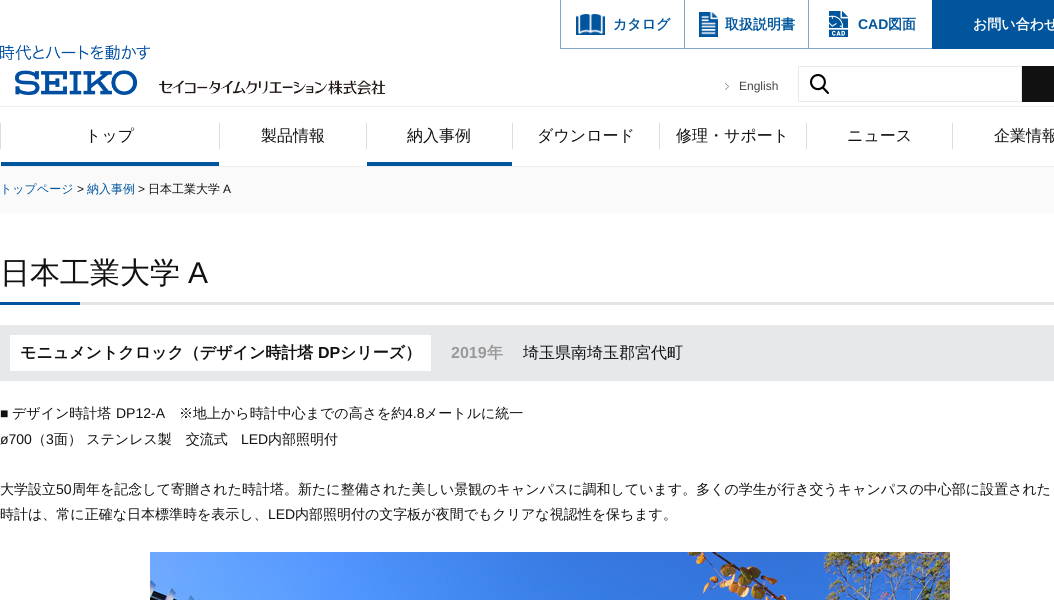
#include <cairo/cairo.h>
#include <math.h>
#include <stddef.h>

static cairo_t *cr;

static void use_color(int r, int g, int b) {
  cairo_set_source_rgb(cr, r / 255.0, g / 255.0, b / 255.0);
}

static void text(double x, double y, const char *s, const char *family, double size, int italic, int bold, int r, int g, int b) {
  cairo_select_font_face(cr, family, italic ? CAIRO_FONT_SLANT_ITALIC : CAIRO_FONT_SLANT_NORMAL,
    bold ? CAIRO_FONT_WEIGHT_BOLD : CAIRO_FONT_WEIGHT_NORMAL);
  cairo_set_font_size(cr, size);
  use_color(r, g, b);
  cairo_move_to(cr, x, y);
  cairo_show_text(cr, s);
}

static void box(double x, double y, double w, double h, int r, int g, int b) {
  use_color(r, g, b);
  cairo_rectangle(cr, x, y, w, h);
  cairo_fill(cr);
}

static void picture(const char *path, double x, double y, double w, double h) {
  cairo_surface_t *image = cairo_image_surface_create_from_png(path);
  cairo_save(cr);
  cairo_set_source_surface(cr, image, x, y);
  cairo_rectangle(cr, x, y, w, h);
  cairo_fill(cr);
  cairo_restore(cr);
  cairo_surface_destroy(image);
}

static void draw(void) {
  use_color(255, 255, 255);
  cairo_paint(cr);
  picture("img_01.png", 0, 45, 385, 50);
  box(560, 48, 372, 1, 127, 170, 206);
  box(560, 0, 1, 49, 127, 170, 206);
  picture("img_02.png", 576, 14, 29, 21);
  box(684, 0, 1, 49, 127, 170, 206);
  picture("img_03.png", 699, 12, 19, 25);
  box(808, 0, 1, 49, 127, 170, 206);
  picture("img_04.png", 829, 11, 19, 26);
  box(932, 0, 122, 49, 0, 85, 157);
  picture("img_05.png", 725, 83, 4, 7);
  picture("img_06.png", 810, 74, 19, 20);
  cairo_rectangle(cr, 798.5, 66.5, 223, 35);
  use_color(233, 233, 233);
  cairo_set_line_width(cr, 1);
  cairo_stroke(cr);
  box(1022, 66, 32, 36, 17, 17, 17);
  box(0, 106, 1054, 1, 238, 238, 238);
  box(0, 166, 1054, 1, 238, 238, 238);
  box(0, 123, 1, 26, 221, 221, 221);
  box(1, 162, 218, 4, 0, 85, 157);
  box(219, 123, 1, 26, 221, 221, 221);
  box(366, 123, 1, 26, 221, 221, 221);
  box(367, 162, 145, 4, 0, 85, 157);
  box(512, 123, 1, 26, 221, 221, 221);
  box(659, 123, 1, 26, 221, 221, 221);
  box(806, 123, 1, 26, 221, 221, 221);
  box(952, 123, 1, 26, 221, 221, 221);
  box(0, 167, 1054, 46, 250, 250, 251);
  box(80, 302, 974, 3, 228, 228, 229);
  box(0, 302, 80, 3, 0, 85, 157);
  box(0, 325, 1054, 56, 231, 232, 234);
  box(10, 335, 421, 36, 255, 255, 255);
  picture("img_07.png", 150, 552, 800, 48);
  text(613, 29, "カタログ", "WenQuanYi Zen Hei", 14, 0, 1, 0, 85, 157);
  text(725, 29, "取扱説明書", "WenQuanYi Zen Hei", 14, 0, 1, 0, 85, 157);
  text(858, 29, "CAD", "Liberation Sans", 14, 0, 1, 0, 85, 157);
  text(888, 29, "図面", "WenQuanYi Zen Hei", 14, 0, 1, 0, 85, 157);
  text(973, 29, "お問い合わせ", "WenQuanYi Zen Hei", 14, 0, 1, 255, 255, 255);
  text(739, 90, "English", "Liberation Sans", 12, 0, 0, 68, 68, 68);
  text(85, 141, "トップ", "WenQuanYi Zen Hei Medium", 16, 0, 0, 17, 17, 17);
  text(261, 141, "製品情報", "WenQuanYi Zen Hei Medium", 16, 0, 0, 17, 17, 17);
  text(407, 141, "納入事例", "WenQuanYi Zen Hei Medium", 16, 0, 0, 17, 17, 17);
  text(537, 141, "ダウンロード", "WenQuanYi Zen Hei Medium", 16, 0, 0, 17, 17, 17);
  text(676, 141, "修理・サポート", "WenQuanYi Zen Hei Medium", 16, 0, 0, 17, 17, 17);
  text(847, 141, "ニュース", "WenQuanYi Zen Hei Medium", 16, 0, 0, 17, 17, 17);
  text(994, 141, "企業情報", "WenQuanYi Zen Hei Medium", 16, 0, 0, 17, 17, 17);
  text(0, 193, "トップページ", "WenQuanYi Zen Hei Medium", 12, 0, 0, 0, 85, 157);
  text(77, 193, ">", "Liberation Sans", 12, 0, 0, 17, 17, 17);
  text(87, 193, "納入事例", "WenQuanYi Zen Hei Medium", 12, 0, 0, 0, 85, 157);
  text(138, 193, ">", "Liberation Sans", 12, 0, 0, 17, 17, 17);
  text(148, 193, "日本工業大学", "WenQuanYi Zen Hei Medium", 12, 0, 0, 17, 17, 17);
  text(223, 193, "A", "Liberation Sans", 12, 0, 0, 17, 17, 17);
  text(0, 283, "日本工業大学", "WenQuanYi Zen Hei Medium", 30, 0, 0, 17, 17, 17);
  text(188, 283, "A", "Liberation Sans", 30, 0, 0, 17, 17, 17);
  text(20, 358, "モニュメントクロック（デザイン時計塔", "WenQuanYi Zen Hei", 16, 0, 1, 17, 17, 17);
  text(318, 358, "DP", "Liberation Sans", 16, 0, 1, 17, 17, 17);
  text(340, 358, "シリーズ）", "WenQuanYi Zen Hei", 16, 0, 1, 17, 17, 17);
  text(451, 358, "2019", "Liberation Sans", 16, 0, 1, 153, 153, 153);
  text(487, 358, "年", "WenQuanYi Zen Hei", 16, 0, 1, 153, 153, 153);
  text(523, 358, "埼玉県南埼玉郡宮代町", "WenQuanYi Zen Hei Medium", 16, 0, 0, 17, 17, 17);
  text(0, 418, "■", "Liberation Sans", 14, 0, 0, 17, 17, 17);
  text(12, 418, "デザイン時計塔", "WenQuanYi Zen Hei Medium", 14, 0, 0, 17, 17, 17);
  text(116, 418, "DP12-A", "Liberation Sans", 14, 0, 0, 17, 17, 17);
  text(179, 418, "※地上から時計中心までの高さを約", "WenQuanYi Zen Hei Medium", 14, 0, 0, 17, 17, 17);
  text(405, 418, "4.8", "Liberation Sans", 14, 0, 0, 17, 17, 17);
  text(424, 418, "メートルに統一", "WenQuanYi Zen Hei Medium", 14, 0, 0, 17, 17, 17);
  text(0, 444, "ø700", "Liberation Sans", 14, 0, 0, 17, 17, 17);
  text(32, 444, "（", "WenQuanYi Zen Hei Medium", 14, 0, 0, 17, 17, 17);
  text(46, 444, "3", "Liberation Sans", 14, 0, 0, 17, 17, 17);
  text(54, 444, "面） ステンレス製　交流式", "WenQuanYi Zen Hei Medium", 14, 0, 0, 17, 17, 17);
  text(241, 444, "LED", "Liberation Sans", 14, 0, 0, 17, 17, 17);
  text(268, 444, "内部照明付", "WenQuanYi Zen Hei Medium", 14, 0, 0, 17, 17, 17);
  text(0, 494, "大学設立", "WenQuanYi Zen Hei Medium", 14, 0, 0, 17, 17, 17);
  text(56, 494, "50", "Liberation Sans", 14, 0, 0, 17, 17, 17);
  text(72, 494, "周年を記念して寄贈された時計塔。新たに整備された美しい景観のキャンパスに調和しています。多くの学生が行き交うキャンパスの中心部に設置された", "WenQuanYi Zen Hei Medium", 14, 0, 0, 17, 17, 17);
  text(0, 519, "時計は、常に正確な日本標準時を表示し、", "WenQuanYi Zen Hei Medium", 14, 0, 0, 17, 17, 17);
  text(268, 519, "LED", "Liberation Sans", 14, 0, 0, 17, 17, 17);
  text(295, 519, "内部照明付の文字板が夜間でもクリアな視認性を保ちます。", "WenQuanYi Zen Hei Medium", 14, 0, 0, 17, 17, 17);
}

int main(void) {
  cairo_surface_t *surface = cairo_image_surface_create(CAIRO_FORMAT_RGB24, 1054, 600);
  cr = cairo_create(surface);
  cairo_font_options_t *options = cairo_font_options_create();
  cairo_font_options_set_hint_metrics(options, CAIRO_HINT_METRICS_OFF);
  cairo_font_options_set_hint_style(options, CAIRO_HINT_STYLE_NONE);
  cairo_set_font_options(cr, options);
  cairo_set_miter_limit(cr, 4);
  draw();
  cairo_surface_write_to_png(surface, "out.png");
  cairo_font_options_destroy(options);
  cairo_destroy(cr);
  cairo_surface_destroy(surface);
  return 0;
}
